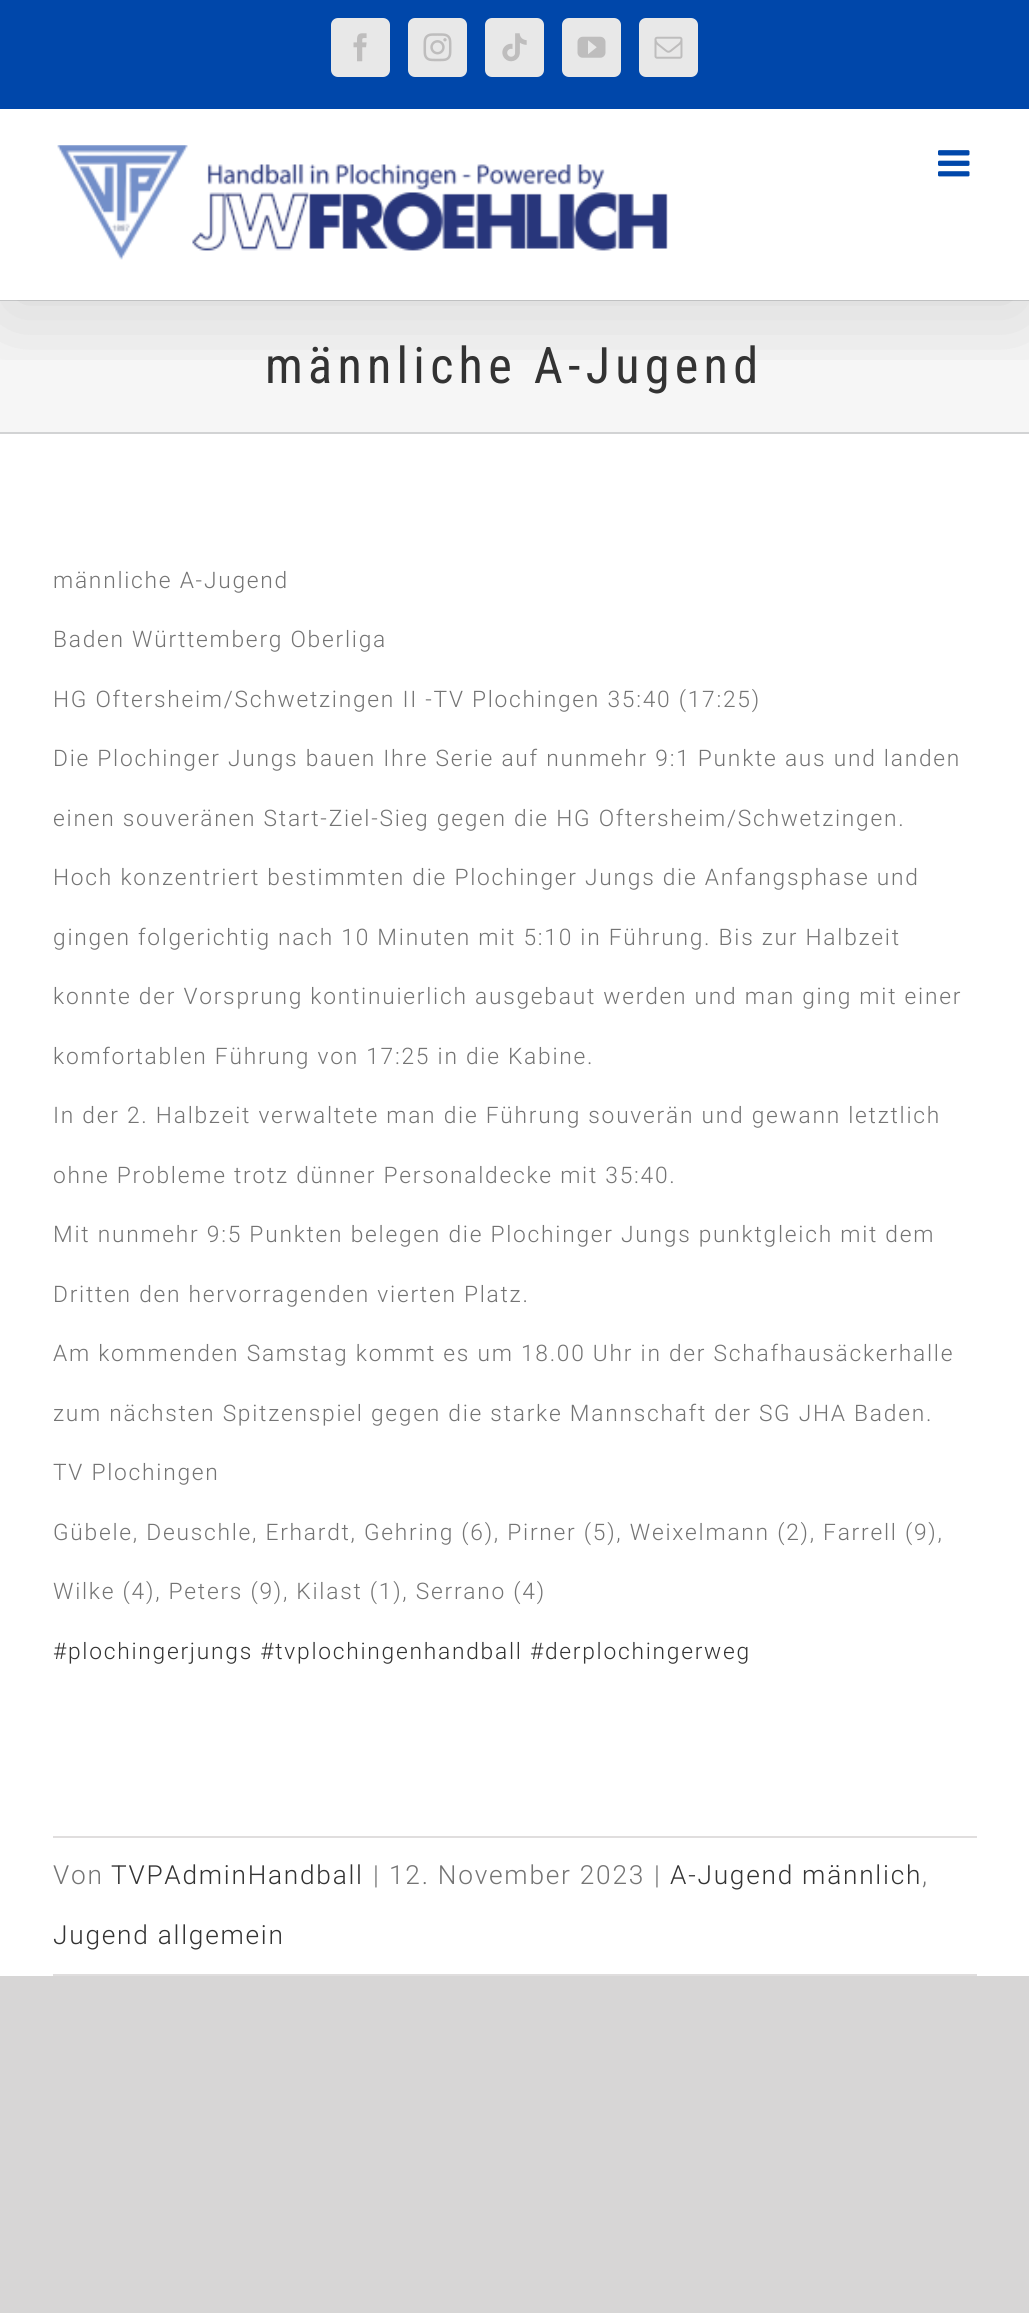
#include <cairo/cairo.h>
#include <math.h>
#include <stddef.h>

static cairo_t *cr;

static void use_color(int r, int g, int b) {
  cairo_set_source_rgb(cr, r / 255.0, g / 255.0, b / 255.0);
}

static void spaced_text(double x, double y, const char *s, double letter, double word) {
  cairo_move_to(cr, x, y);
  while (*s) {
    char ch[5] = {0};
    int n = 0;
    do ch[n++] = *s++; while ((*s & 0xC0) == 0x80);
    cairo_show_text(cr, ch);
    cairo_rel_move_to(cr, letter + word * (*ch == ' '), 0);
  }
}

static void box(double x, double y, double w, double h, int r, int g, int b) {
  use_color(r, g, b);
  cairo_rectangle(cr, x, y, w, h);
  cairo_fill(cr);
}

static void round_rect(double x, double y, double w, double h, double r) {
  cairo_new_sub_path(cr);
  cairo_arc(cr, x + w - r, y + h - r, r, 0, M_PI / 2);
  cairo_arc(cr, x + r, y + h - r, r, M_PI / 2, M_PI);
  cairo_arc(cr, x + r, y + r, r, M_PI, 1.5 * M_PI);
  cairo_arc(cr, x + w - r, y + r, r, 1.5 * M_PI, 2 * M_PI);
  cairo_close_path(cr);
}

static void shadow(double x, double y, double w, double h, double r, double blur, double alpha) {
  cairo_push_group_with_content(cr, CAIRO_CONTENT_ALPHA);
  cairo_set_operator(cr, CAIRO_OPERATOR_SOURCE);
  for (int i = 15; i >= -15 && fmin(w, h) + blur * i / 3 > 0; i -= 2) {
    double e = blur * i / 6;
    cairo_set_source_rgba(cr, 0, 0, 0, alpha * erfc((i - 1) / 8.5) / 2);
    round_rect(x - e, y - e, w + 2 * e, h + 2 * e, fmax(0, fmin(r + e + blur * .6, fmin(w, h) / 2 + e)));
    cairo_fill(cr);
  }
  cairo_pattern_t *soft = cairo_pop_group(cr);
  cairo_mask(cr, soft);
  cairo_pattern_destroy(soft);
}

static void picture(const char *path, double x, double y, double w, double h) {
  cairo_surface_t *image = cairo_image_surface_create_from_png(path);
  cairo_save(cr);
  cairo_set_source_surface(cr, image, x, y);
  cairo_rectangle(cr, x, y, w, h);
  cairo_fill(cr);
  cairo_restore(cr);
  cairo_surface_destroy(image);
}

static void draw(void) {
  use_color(215, 214, 214);
  cairo_paint(cr);
  box(0, 111, 1029, 1865, 255, 255, 255);
  box(0, 301, 1029, 131, 246, 246, 246);
  box(0, 300, 1029, 1, 210, 211, 212);
  box(0, 432, 1029, 2, 210, 211, 212);
  cairo_save(cr);
  cairo_rectangle(cr, 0, 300, 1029, 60);
  cairo_clip(cr);
  use_color(0, 0, 0);
  shadow(4, 21, 1022, 292, 0, 44, 0.14);
  cairo_restore(cr);
  box(0, 0, 1029, 109, 0, 71, 170);
  box(0, 109, 1029, 2, 255, 255, 255);
  use_color(232, 232, 232);
  round_rect(332, 19, 57, 57, 6);
  cairo_fill_preserve(cr);
  cairo_stroke(cr);
  picture("img_01.png", 353, 33, 14, 29);
  round_rect(409, 19, 57, 57, 6);
  cairo_fill_preserve(cr);
  cairo_stroke(cr);
  picture("img_02.png", 423, 33, 29, 29);
  round_rect(486, 19, 57, 57, 6);
  cairo_fill_preserve(cr);
  cairo_stroke(cr);
  picture("img_03.png", 502, 33, 25, 29);
  round_rect(563, 19, 57, 57, 6);
  cairo_fill_preserve(cr);
  cairo_stroke(cr);
  picture("img_04.png", 577, 36, 29, 22);
  round_rect(640, 19, 57, 57, 6);
  cairo_fill_preserve(cr);
  cairo_stroke(cr);
  picture("img_05.png", 654, 36, 29, 23);
  box(0, 299, 1029, 1, 255, 255, 255);
  picture("img_06.png", 57, 145, 611, 115);
  picture("img_07.png", 938, 150, 32, 27);
  box(53, 1836, 924, 2, 224, 222, 222);
  box(53, 1974, 924, 2, 224, 222, 222);
  cairo_select_font_face(cr, "Roboto Condensed", CAIRO_FONT_SLANT_NORMAL, CAIRO_FONT_WEIGHT_NORMAL);
  cairo_set_font_size(cr, 50.25);
  use_color(51, 51, 51);
  spaced_text(265, 383, "männliche A-Jugend", 5.25, 0);
  cairo_select_font_face(cr, "Roboto Light", CAIRO_FONT_SLANT_NORMAL, CAIRO_FONT_WEIGHT_NORMAL);
  cairo_set_font_size(cr, 22.75);
  use_color(116, 116, 116);
  spaced_text(53, 588, "männliche A-Jugend", 1.75, 0);
  spaced_text(53, 647, "Baden Württemberg Oberliga", 1.75, 0);
  spaced_text(53, 707, "HG Oftersheim/Schwetzingen II -TV Plochingen 35:40 (17:25)", 1.75, 0);
  spaced_text(53, 766, "Die Plochinger Jungs bauen Ihre Serie auf nunmehr 9:1 Punkte aus und landen", 1.75, 0);
  spaced_text(53, 826, "einen souveränen Start-Ziel-Sieg gegen die HG Oftersheim/Schwetzingen.", 1.75, 0);
  spaced_text(53, 885, "Hoch konzentriert bestimmten die Plochinger Jungs die Anfangsphase und", 1.75, 0);
  spaced_text(53, 945, "gingen folgerichtig nach 10 Minuten mit 5:10 in Führung. Bis zur Halbzeit", 1.75, 0);
  spaced_text(53, 1004, "konnte der Vorsprung kontinuierlich ausgebaut werden und man ging mit einer", 1.75, 0);
  spaced_text(53, 1064, "komfortablen Führung von 17:25 in die Kabine.", 1.75, 0);
  spaced_text(53, 1123, "In der 2. Halbzeit verwaltete man die Führung souverän und gewann letztlich", 1.75, 0);
  spaced_text(53, 1183, "ohne Probleme trotz dünner Personaldecke mit 35:40.", 1.75, 0);
  spaced_text(53, 1242, "Mit nunmehr 9:5 Punkten belegen die Plochinger Jungs punktgleich mit dem", 1.75, 0);
  spaced_text(53, 1302, "Dritten den hervorragenden vierten Platz.", 1.75, 0);
  spaced_text(53, 1361, "Am kommenden Samstag kommt es um 18.00 Uhr in der Schafhausäckerhalle", 1.75, 0);
  spaced_text(53, 1421, "zum nächsten Spitzenspiel gegen die starke Mannschaft der SG JHA Baden.", 1.75, 0);
  spaced_text(53, 1480, "TV Plochingen", 1.75, 0);
  spaced_text(53, 1540, "Gübele, Deuschle, Erhardt, Gehring (6), Pirner (5), Weixelmann (2), Farrell (9),", 1.75, 0);
  spaced_text(53, 1599, "Wilke (4), Peters (9), Kilast (1), Serrano (4)", 1.75, 0);
  use_color(51, 51, 51);
  spaced_text(53, 1659, "#plochingerjungs #tvplochingenhandball #derplochingerweg", 1.75, 0);
  cairo_set_font_size(cr, 26.25);
  use_color(116, 116, 116);
  spaced_text(53, 1884, "Von", 1.75, 0);
  use_color(51, 51, 51);
  spaced_text(111, 1884, "TVPAdminHandball", 1.75, 0);
  use_color(116, 116, 116);
  spaced_text(373, 1884, "|", 1.75, 0);
  spaced_text(389, 1884, "12. November 2023", 1.75, 0);
  spaced_text(654, 1884, "|", 1.75, 0);
  use_color(51, 51, 51);
  spaced_text(670, 1884, "A-Jugend männlich", 1.75, 0);
  use_color(116, 116, 116);
  spaced_text(922, 1884, ",", 1.75, 0);
  use_color(51, 51, 51);
  spaced_text(53, 1944, "Jugend allgemein", 1.75, 0);
}

int main(void) {
  cairo_surface_t *surface = cairo_image_surface_create(CAIRO_FORMAT_RGB24, 1029, 2313);
  cr = cairo_create(surface);
  cairo_font_options_t *options = cairo_font_options_create();
  cairo_font_options_set_hint_metrics(options, CAIRO_HINT_METRICS_OFF);
  cairo_font_options_set_hint_style(options, CAIRO_HINT_STYLE_NONE);
  cairo_set_font_options(cr, options);
  cairo_set_miter_limit(cr, 4);
  draw();
  cairo_surface_write_to_png(surface, "out.png");
  cairo_font_options_destroy(options);
  cairo_destroy(cr);
  cairo_surface_destroy(surface);
  return 0;
}
